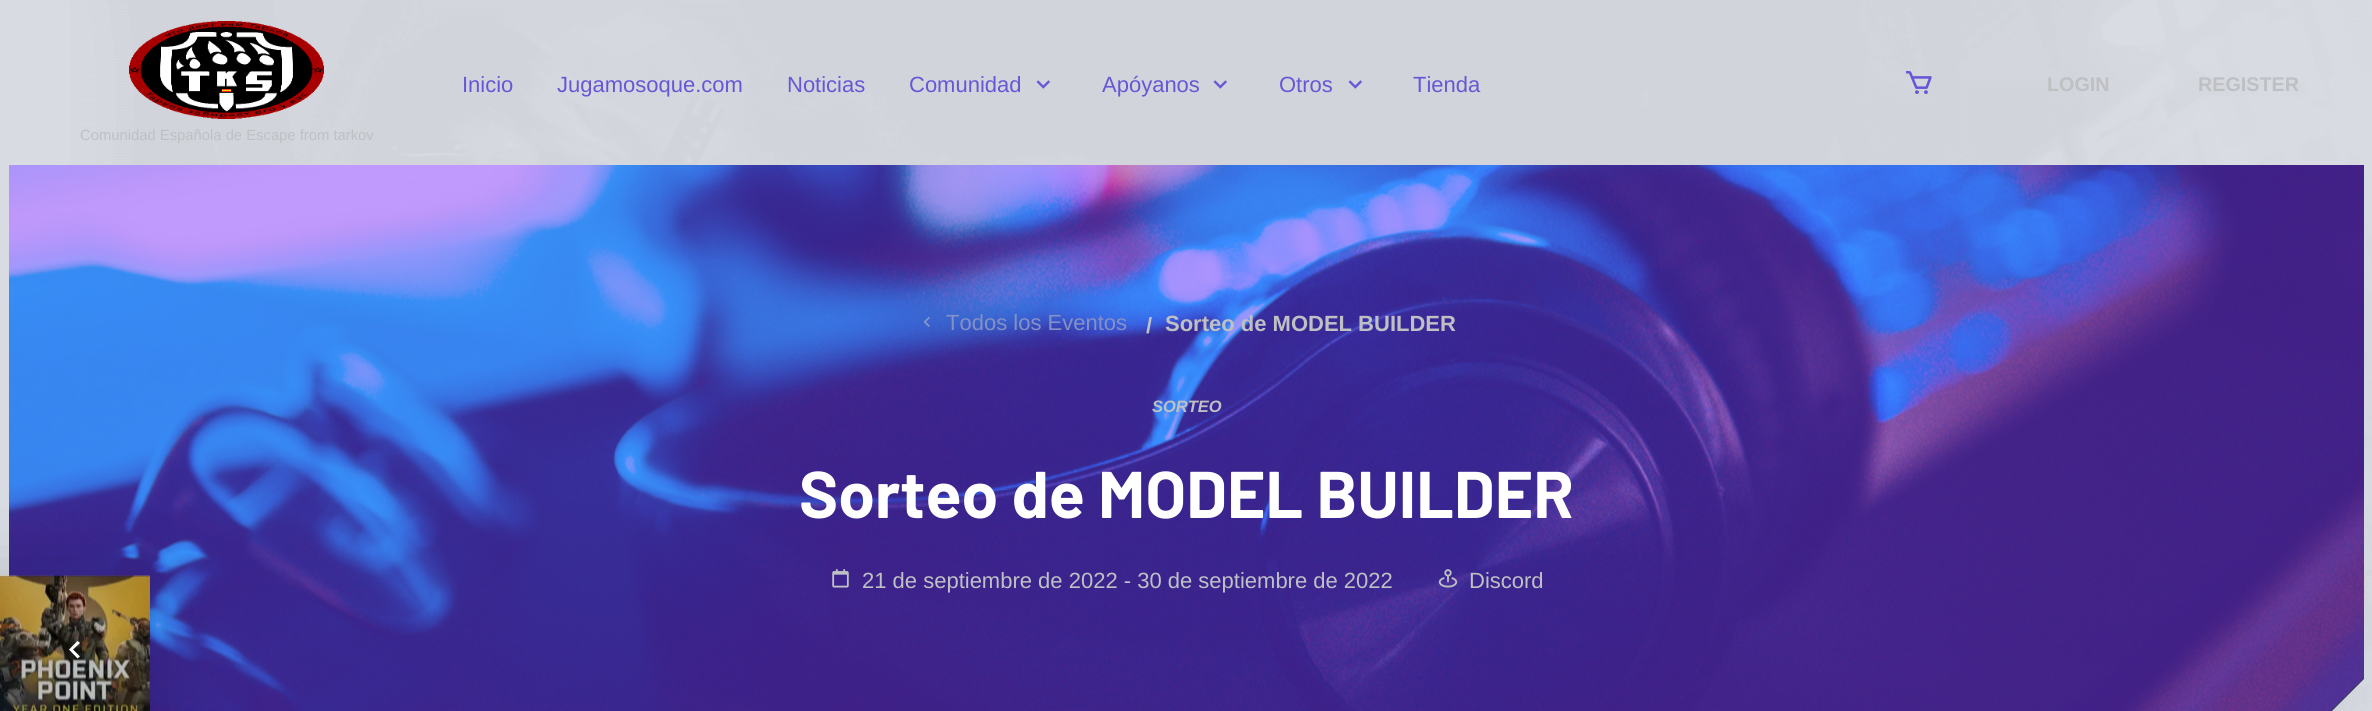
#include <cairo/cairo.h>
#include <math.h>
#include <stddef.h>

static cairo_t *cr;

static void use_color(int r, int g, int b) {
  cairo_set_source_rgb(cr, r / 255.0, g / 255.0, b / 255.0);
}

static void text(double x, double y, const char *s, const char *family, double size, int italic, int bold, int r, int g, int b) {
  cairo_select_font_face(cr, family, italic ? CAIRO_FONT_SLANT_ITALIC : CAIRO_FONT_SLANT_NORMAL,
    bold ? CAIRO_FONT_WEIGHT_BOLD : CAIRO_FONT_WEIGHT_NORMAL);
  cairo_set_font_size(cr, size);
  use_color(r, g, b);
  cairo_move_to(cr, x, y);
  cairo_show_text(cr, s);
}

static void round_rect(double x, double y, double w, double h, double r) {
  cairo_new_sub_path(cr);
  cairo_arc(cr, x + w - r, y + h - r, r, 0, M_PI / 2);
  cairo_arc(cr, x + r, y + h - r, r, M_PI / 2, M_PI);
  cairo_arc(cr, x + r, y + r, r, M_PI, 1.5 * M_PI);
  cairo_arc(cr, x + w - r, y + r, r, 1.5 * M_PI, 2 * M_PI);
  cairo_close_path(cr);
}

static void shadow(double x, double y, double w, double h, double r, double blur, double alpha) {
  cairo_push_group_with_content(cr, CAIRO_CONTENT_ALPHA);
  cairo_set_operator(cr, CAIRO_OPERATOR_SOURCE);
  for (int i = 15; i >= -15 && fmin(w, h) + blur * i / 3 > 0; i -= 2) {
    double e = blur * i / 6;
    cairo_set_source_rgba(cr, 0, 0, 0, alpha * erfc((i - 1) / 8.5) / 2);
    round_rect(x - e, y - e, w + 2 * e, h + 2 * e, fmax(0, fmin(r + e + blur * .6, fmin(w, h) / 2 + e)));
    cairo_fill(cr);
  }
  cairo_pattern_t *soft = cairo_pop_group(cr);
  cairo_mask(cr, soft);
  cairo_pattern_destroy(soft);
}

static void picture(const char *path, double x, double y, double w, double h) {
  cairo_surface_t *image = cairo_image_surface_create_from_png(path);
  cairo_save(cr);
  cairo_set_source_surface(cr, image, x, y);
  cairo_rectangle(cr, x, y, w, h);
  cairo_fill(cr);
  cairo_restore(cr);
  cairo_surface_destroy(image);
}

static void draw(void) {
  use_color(216, 219, 226);
  cairo_paint(cr);
  picture("img_01.png", 70, 0, 2302, 711);
  picture("img_02.png", 1036, 80, 14, 9);
  picture("img_02.png", 1213, 80, 14, 9);
  picture("img_02.png", 1348, 80, 14, 9);
  picture("img_03.png", 1906, 71, 26, 23);
  picture("img_04.png", 129, 21, 195, 98);
  picture("img_05.png", 9, 165, 2355, 546);
  cairo_set_source_rgba(cr, 0.478, 0.153, 1, 0.45);
  cairo_new_path(cr);
  cairo_move_to(cr, 9, 165);
  cairo_line_to(cr, 9, 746);
  cairo_line_to(cr, 2296, 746);
  cairo_line_to(cr, 2364, 678);
  cairo_line_to(cr, 2364, 165);
  cairo_close_path(cr);
  cairo_fill(cr);
  picture("img_06.png", 923, 316, 7, 11);
  picture("img_07.png", 832, 569, 17, 19);
  picture("img_08.png", 1438, 569, 20, 19);
  use_color(0, 0, 0);
  shadow(-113, 576, 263, 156, 0, 37.5, 0.15);
  picture("img_09.png", 0, 575, 150, 136);
  cairo_set_source_rgba(cr, 0, 0, 0, 0.25);
  cairo_rectangle(cr, 0, 576, 150, 135);
  cairo_fill(cr);
  use_color(255, 255, 255);
  cairo_new_path(cr);
  cairo_move_to(cr, 77.5, 641);
  cairo_line_to(cr, 69, 649.5);
  cairo_line_to(cr, 77.5, 658.5);
  cairo_line_to(cr, 80, 656.5);
  cairo_line_to(cr, 73, 649.5);
  cairo_line_to(cr, 80, 643);
  cairo_close_path(cr);
  cairo_fill(cr);
  text(462, 92, "Inicio", "Liberation Sans", 22, 0, 0, 103, 87, 214);
  text(557, 92, "Jugamosoque.com", "Liberation Sans", 22, 0, 0, 103, 87, 214);
  text(787, 92, "Noticias", "Liberation Sans", 22, 0, 0, 103, 87, 214);
  text(909, 92, "Comunidad", "Liberation Sans", 22, 0, 0, 103, 87, 214);
  text(1102, 92, "Apóyanos", "Liberation Sans", 22, 0, 0, 103, 87, 214);
  text(1279, 92, "Otros", "Liberation Sans", 22, 0, 0, 103, 87, 214);
  text(1413, 92, "Tienda", "Liberation Sans", 22, 0, 0, 103, 87, 214);
  text(2047, 91, "LOGIN", "Liberation Sans", 19.75, 0, 1, 191, 192, 196);
  text(2198, 91, "REGISTER", "Liberation Sans", 19.75, 0, 1, 191, 192, 196);
  text(80, 140, "Comunidad Española de Escape from tarkov", "Liberation Sans", 14.8, 0, 0, 191, 192, 196);
  text(946, 330, "Todos los Eventos", "Liberation Sans", 22, 0, 0, 131, 145, 199);
  text(1146, 333, "/", "Liberation Sans", 22, 0, 1, 191, 192, 196);
  text(1165, 331, "Sorteo de MODEL BUILDER", "Liberation Sans", 22, 0, 1, 191, 192, 196);
  text(1152, 412, "SORTEO", "Liberation Sans", 16.5, 1, 1, 191, 192, 196);
  text(799, 518, "Sorteo de MODEL BUILDER", "Barlow", 66, 0, 1, 255, 255, 255);
  text(862, 588, "21 de septiembre de 2022 - 30 de septiembre de 2022", "Liberation Sans", 22, 0, 0, 191, 192, 196);
  text(1469, 588, "Discord", "Liberation Sans", 22, 0, 0, 191, 192, 196);
}

int main(void) {
  cairo_surface_t *surface = cairo_image_surface_create(CAIRO_FORMAT_RGB24, 2372, 711);
  cr = cairo_create(surface);
  cairo_font_options_t *options = cairo_font_options_create();
  cairo_font_options_set_hint_metrics(options, CAIRO_HINT_METRICS_OFF);
  cairo_font_options_set_hint_style(options, CAIRO_HINT_STYLE_NONE);
  cairo_set_font_options(cr, options);
  cairo_set_miter_limit(cr, 4);
  draw();
  cairo_surface_write_to_png(surface, "out.png");
  cairo_font_options_destroy(options);
  cairo_destroy(cr);
  cairo_surface_destroy(surface);
  return 0;
}
